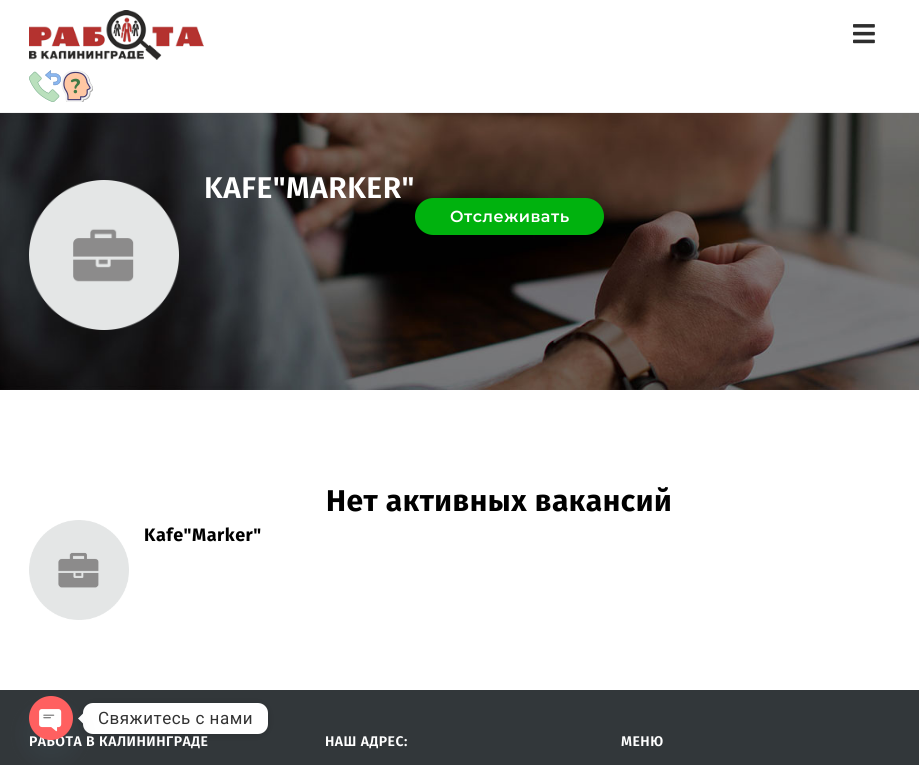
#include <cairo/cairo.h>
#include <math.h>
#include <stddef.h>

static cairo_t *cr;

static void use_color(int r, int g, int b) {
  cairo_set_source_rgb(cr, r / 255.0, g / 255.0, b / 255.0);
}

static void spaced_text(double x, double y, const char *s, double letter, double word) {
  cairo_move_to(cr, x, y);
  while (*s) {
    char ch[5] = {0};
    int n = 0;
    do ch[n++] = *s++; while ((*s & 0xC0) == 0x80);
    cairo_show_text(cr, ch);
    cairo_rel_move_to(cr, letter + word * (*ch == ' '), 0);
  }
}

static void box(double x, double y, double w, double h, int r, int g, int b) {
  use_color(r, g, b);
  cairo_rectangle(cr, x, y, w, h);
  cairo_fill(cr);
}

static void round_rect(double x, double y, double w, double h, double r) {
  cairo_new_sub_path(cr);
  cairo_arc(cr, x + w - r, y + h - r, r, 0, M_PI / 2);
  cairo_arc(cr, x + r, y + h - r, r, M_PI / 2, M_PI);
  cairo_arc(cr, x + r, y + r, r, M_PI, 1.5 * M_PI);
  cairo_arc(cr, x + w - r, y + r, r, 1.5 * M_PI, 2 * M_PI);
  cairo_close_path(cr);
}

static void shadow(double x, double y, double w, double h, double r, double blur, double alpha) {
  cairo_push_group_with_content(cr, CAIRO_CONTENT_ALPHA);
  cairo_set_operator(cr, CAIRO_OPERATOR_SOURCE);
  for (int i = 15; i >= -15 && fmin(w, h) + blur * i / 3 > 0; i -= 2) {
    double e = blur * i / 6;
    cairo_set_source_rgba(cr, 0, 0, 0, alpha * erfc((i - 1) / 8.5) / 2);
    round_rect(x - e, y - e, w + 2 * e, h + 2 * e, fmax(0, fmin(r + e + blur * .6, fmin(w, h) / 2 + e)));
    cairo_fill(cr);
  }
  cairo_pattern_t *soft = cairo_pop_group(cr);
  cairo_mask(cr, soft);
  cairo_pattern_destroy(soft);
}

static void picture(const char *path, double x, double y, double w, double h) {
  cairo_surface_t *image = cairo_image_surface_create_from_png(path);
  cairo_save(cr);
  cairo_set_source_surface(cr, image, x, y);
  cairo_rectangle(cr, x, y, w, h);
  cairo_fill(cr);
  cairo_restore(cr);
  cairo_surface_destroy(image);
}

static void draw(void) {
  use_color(255, 255, 255);
  cairo_paint(cr);
  box(0, 112, 919, 1, 242, 242, 242);
  picture("img_01.png", 29, 10, 175, 50);
  picture("img_02.png", 853, 24, 22, 20);
  picture("img_03.png", 29, 70, 32, 32);
  picture("img_04.png", 61, 70, 32, 32);
  picture("img_05.png", 0, 113, 919, 277);
  picture("img_06.png", 29, 180, 150, 150);
  use_color(0, 178, 14);
  round_rect(415, 198, 189, 37, 18.5);
  cairo_fill(cr);
  picture("img_07.png", 29, 520, 100, 100);
  box(0, 690, 919, 75, 50, 55, 58);
  use_color(0, 0, 0);
  shadow(83, 704, 185, 31, 10, 4, 0.15);
  use_color(255, 255, 255);
  round_rect(83, 703, 185, 31, 10);
  cairo_fill(cr);
  cairo_new_path(cr);
  cairo_move_to(cr, 83, 713.5);
  cairo_line_to(cr, 83, 723.5);
  cairo_line_to(cr, 78, 718.5);
  cairo_close_path(cr);
  cairo_fill(cr);
  use_color(73, 104, 126);
  shadow(29, 712, 44, 44, 22, 12, 0.16);
  cairo_select_font_face(cr, "Fira Sans SemiBold", CAIRO_FONT_SLANT_NORMAL, CAIRO_FONT_WEIGHT_NORMAL);
  cairo_set_font_size(cr, 30);
  use_color(255, 255, 255);
  spaced_text(204, 198, "KAFE\"MARKER\"", 0.5, 0);
  cairo_select_font_face(cr, "Montserrat SemiBold", CAIRO_FONT_SLANT_NORMAL, CAIRO_FONT_WEIGHT_NORMAL);
  cairo_set_font_size(cr, 16);
  spaced_text(450, 222, "Отслеживать", 0.5, 0);
  cairo_select_font_face(cr, "Fira Sans", CAIRO_FONT_SLANT_NORMAL, CAIRO_FONT_WEIGHT_BOLD);
  cairo_set_font_size(cr, 30);
  use_color(0, 0, 0);
  spaced_text(326, 511, "Нет активных вакансий", 0.5, 0);
  cairo_set_font_size(cr, 18);
  spaced_text(144, 541, "Kafe\"Marker\"", 0.5, 0);
  cairo_select_font_face(cr, "Fira Sans SemiBold", CAIRO_FONT_SLANT_NORMAL, CAIRO_FONT_WEIGHT_NORMAL);
  cairo_set_font_size(cr, 14);
  use_color(255, 255, 255);
  spaced_text(29, 746, "РАБОТА В КАЛИНИНГРАДЕ", 0.5, 0);
  spaced_text(325, 746, "НАШ АДРЕС:", 0.5, 0);
  spaced_text(621, 746, "МЕНЮ", 0.5, 0);
  picture("img_08.png", 29, 696, 44, 44);
  cairo_select_font_face(cr, "Roboto", CAIRO_FONT_SLANT_NORMAL, CAIRO_FONT_WEIGHT_NORMAL);
  cairo_set_font_size(cr, 17);
  use_color(51, 51, 51);
  spaced_text(98, 724, "Свяжитесь с нами", 0.5, 0);
}

int main(void) {
  cairo_surface_t *surface = cairo_image_surface_create(CAIRO_FORMAT_RGB24, 919, 765);
  cr = cairo_create(surface);
  cairo_font_options_t *options = cairo_font_options_create();
  cairo_font_options_set_hint_metrics(options, CAIRO_HINT_METRICS_OFF);
  cairo_font_options_set_hint_style(options, CAIRO_HINT_STYLE_NONE);
  cairo_set_font_options(cr, options);
  cairo_set_miter_limit(cr, 4);
  draw();
  cairo_surface_write_to_png(surface, "out.png");
  cairo_font_options_destroy(options);
  cairo_destroy(cr);
  cairo_surface_destroy(surface);
  return 0;
}
